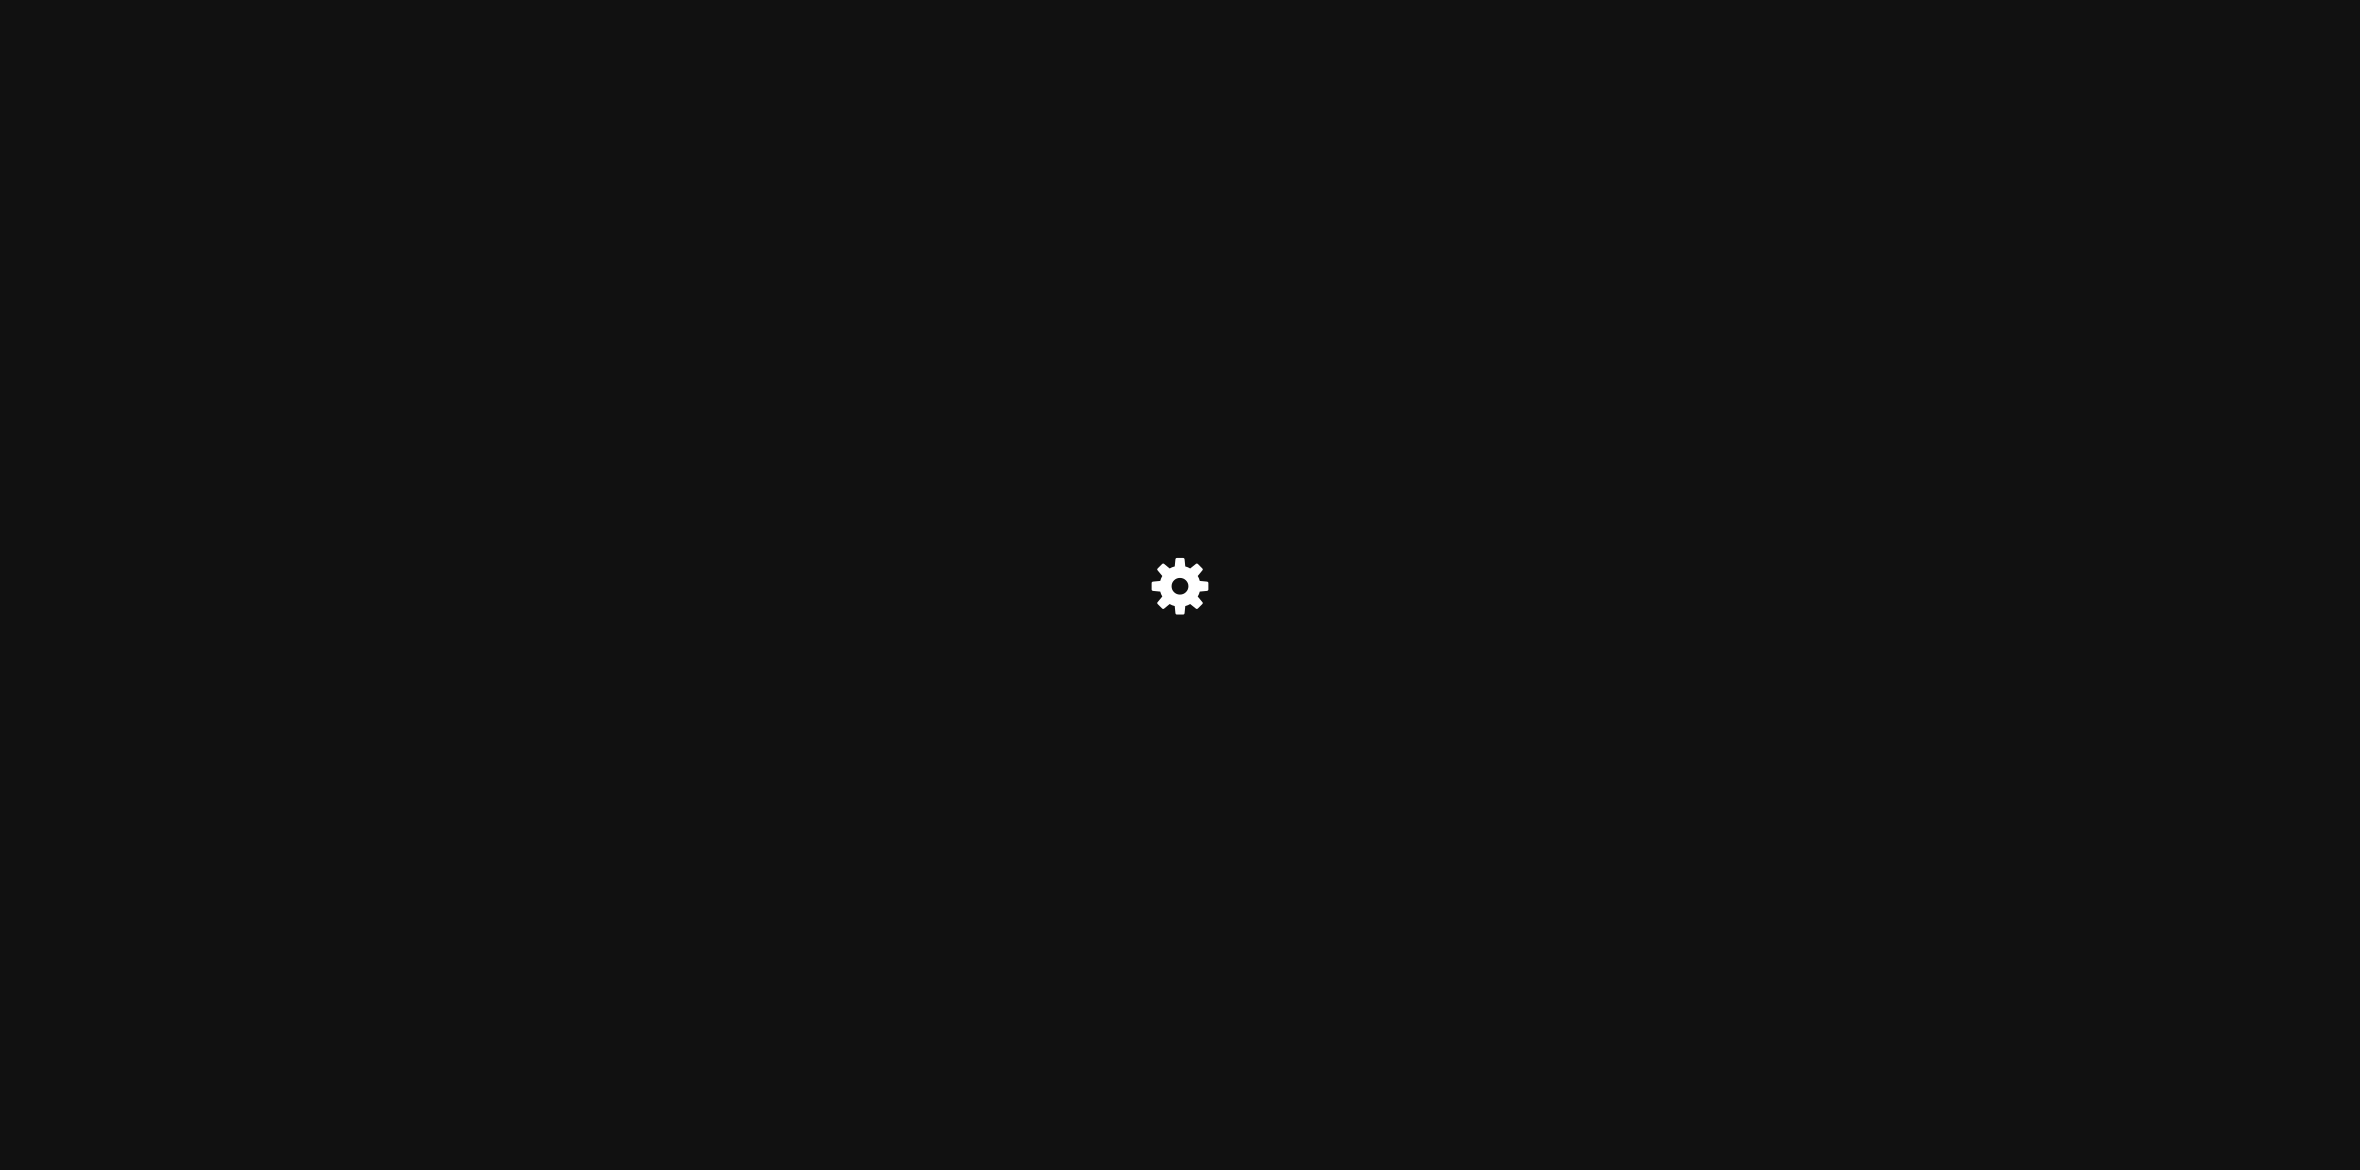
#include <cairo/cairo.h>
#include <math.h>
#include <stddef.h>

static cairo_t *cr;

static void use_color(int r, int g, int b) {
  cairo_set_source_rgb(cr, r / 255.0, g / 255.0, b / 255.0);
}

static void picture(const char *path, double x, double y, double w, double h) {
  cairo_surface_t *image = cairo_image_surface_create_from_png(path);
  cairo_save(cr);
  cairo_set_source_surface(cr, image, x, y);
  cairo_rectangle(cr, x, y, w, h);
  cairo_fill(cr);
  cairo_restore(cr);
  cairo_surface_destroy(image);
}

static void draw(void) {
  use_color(17, 17, 17);
  cairo_paint(cr);
  picture("img_01.png", 1151, 557, 58, 58);
}

int main(void) {
  cairo_surface_t *surface = cairo_image_surface_create(CAIRO_FORMAT_RGB24, 2360, 1170);
  cr = cairo_create(surface);
  cairo_font_options_t *options = cairo_font_options_create();
  cairo_font_options_set_hint_metrics(options, CAIRO_HINT_METRICS_OFF);
  cairo_font_options_set_hint_style(options, CAIRO_HINT_STYLE_NONE);
  cairo_set_font_options(cr, options);
  cairo_set_miter_limit(cr, 4);
  draw();
  cairo_surface_write_to_png(surface, "out.png");
  cairo_font_options_destroy(options);
  cairo_destroy(cr);
  cairo_surface_destroy(surface);
  return 0;
}
